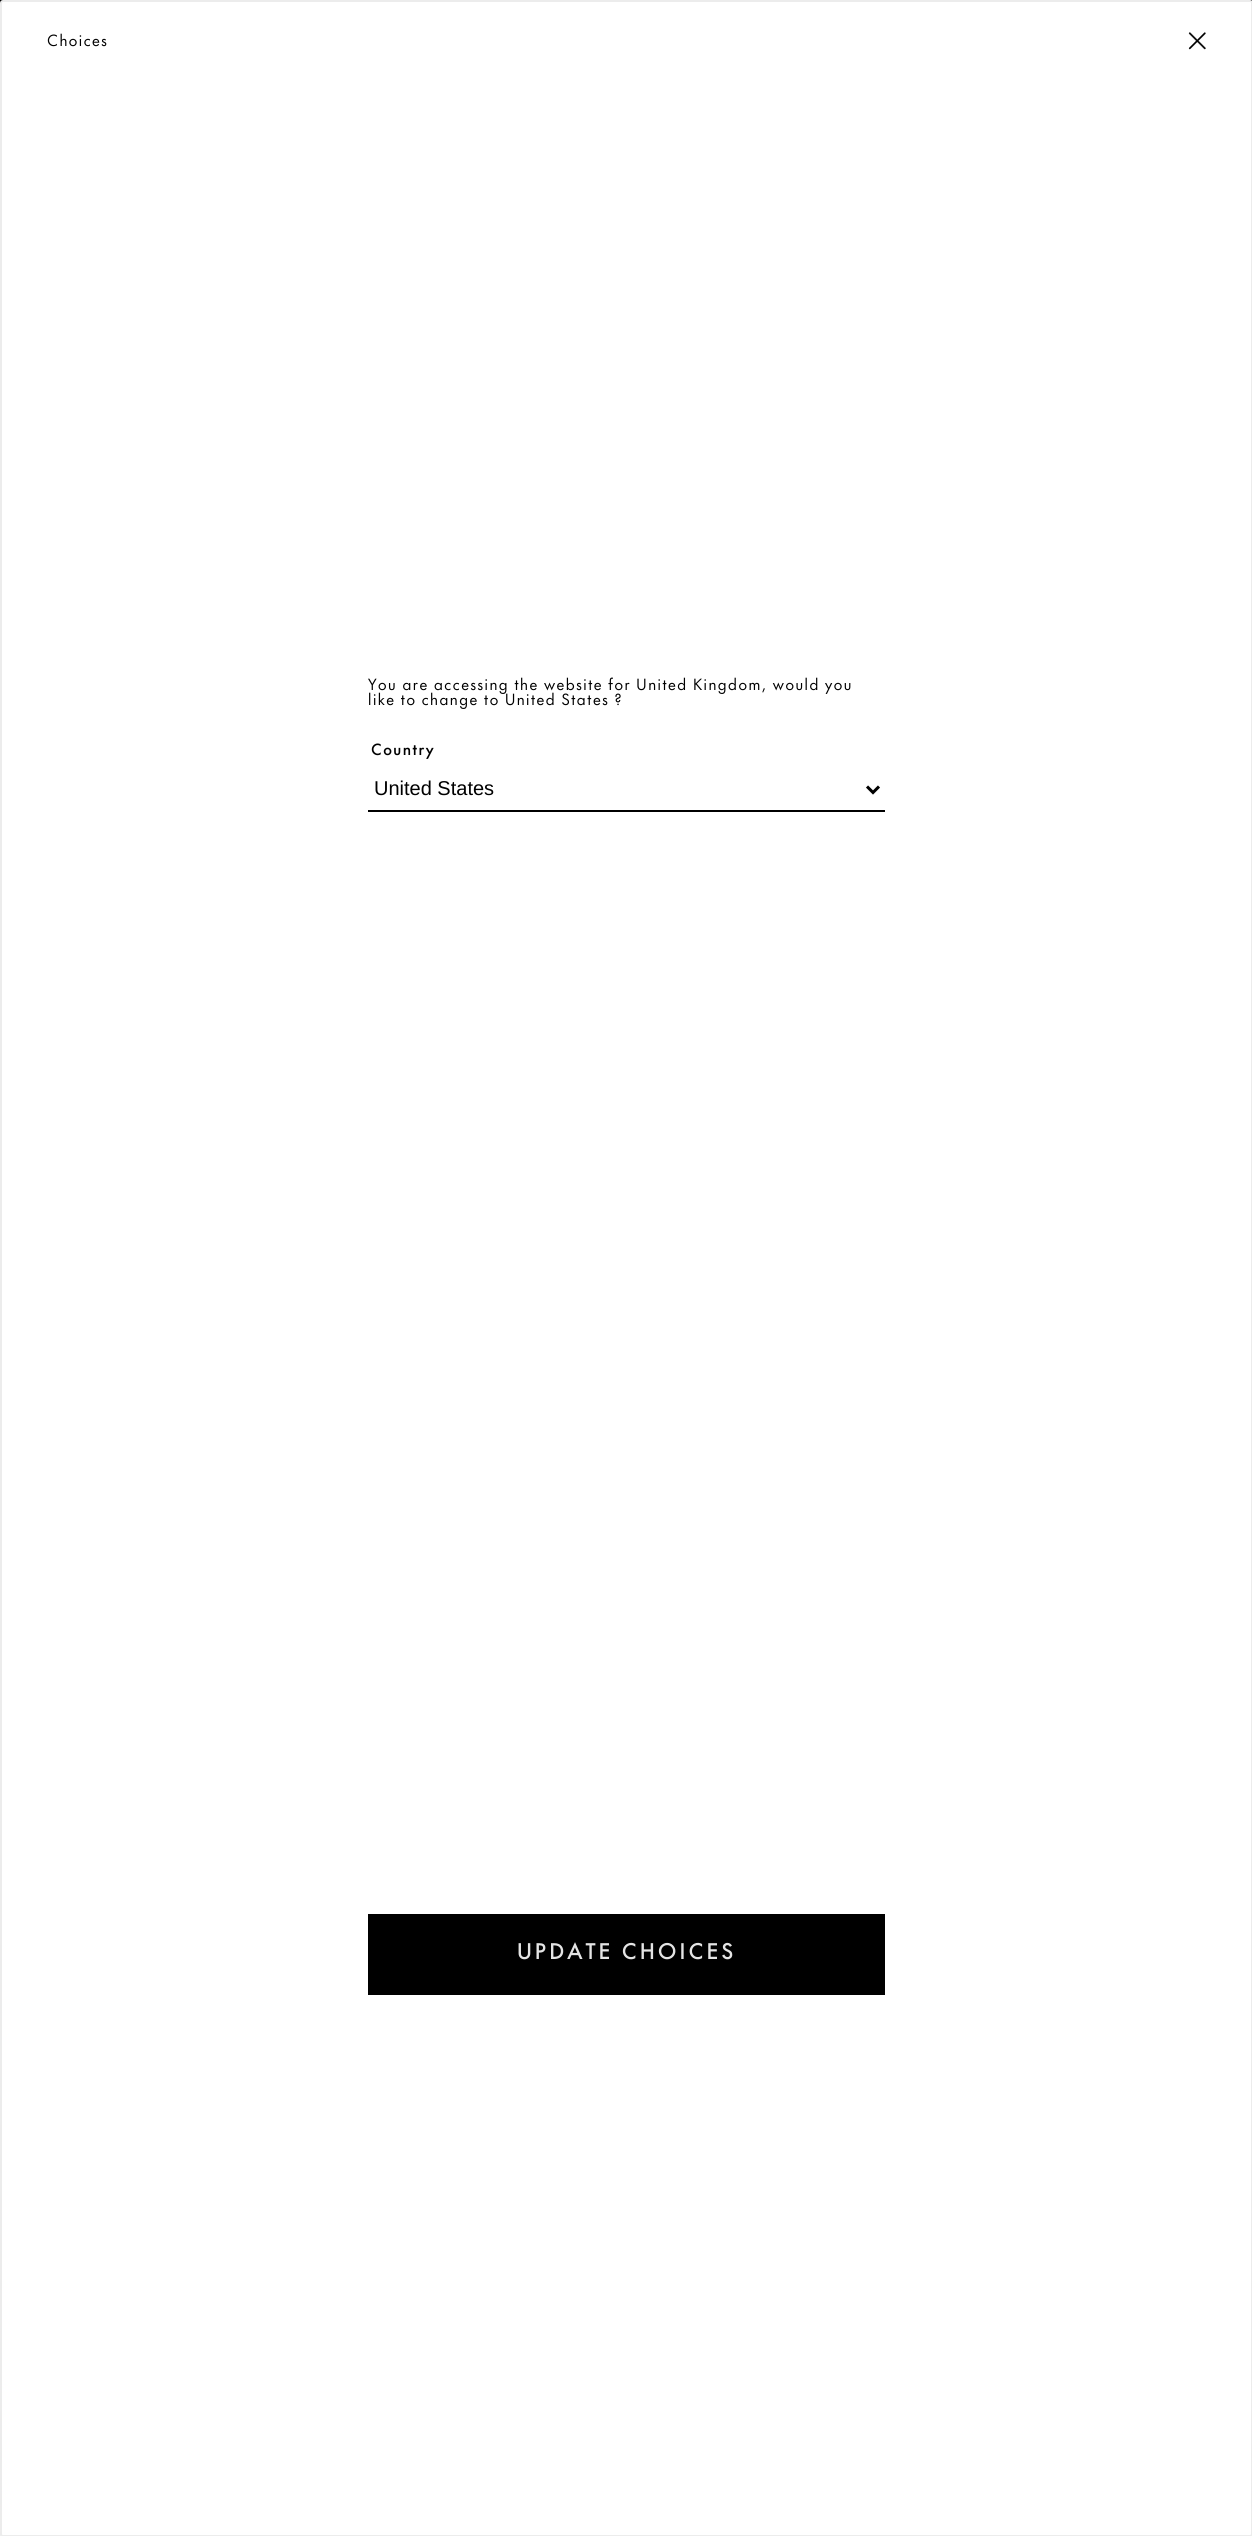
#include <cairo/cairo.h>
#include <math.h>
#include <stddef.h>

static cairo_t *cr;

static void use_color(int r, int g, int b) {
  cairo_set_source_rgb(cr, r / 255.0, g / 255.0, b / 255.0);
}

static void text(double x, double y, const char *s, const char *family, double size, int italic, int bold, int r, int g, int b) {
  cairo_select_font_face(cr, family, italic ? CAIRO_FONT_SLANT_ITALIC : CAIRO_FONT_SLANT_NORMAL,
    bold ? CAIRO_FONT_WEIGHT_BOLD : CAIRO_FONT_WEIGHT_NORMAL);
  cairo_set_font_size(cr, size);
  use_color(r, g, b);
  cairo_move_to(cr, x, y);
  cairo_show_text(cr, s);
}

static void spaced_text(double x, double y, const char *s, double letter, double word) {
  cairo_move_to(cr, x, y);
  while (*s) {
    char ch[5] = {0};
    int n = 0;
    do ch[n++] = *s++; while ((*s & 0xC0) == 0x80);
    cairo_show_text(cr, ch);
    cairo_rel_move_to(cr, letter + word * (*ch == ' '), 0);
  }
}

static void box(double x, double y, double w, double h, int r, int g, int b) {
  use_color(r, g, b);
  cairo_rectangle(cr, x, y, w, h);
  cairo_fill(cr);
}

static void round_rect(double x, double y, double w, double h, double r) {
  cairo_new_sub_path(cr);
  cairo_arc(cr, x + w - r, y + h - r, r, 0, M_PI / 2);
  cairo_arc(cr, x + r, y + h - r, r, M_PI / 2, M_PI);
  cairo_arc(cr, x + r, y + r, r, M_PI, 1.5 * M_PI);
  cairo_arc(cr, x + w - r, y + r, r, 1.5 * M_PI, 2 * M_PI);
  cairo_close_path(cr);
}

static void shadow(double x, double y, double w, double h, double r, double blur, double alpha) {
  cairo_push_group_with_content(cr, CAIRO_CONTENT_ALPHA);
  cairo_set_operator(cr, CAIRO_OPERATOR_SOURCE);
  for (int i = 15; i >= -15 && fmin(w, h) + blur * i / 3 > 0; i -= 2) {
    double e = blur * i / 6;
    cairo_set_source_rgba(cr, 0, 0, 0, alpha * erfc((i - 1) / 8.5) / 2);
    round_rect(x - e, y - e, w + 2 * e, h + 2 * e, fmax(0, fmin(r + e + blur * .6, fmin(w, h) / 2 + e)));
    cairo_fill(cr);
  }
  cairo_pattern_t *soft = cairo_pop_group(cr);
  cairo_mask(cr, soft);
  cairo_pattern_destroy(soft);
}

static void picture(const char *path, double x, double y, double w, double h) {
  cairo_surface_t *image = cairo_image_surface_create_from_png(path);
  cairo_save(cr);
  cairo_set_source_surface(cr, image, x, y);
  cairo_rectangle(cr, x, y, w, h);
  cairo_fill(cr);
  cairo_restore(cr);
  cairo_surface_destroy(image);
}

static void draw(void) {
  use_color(255, 255, 255);
  cairo_paint(cr);
  box(0, 0, 1252, 3, 0, 0, 0);
  use_color(0, 0, 0);
  shadow(0, 8, 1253, 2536, 3, 8, 0.13);
  use_color(255, 255, 255);
  round_rect(1, 1, 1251, 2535, 2);
  cairo_fill_preserve(cr);
  use_color(236, 236, 236);
  cairo_stroke(cr);
  picture("img_01.png", 1188, 32, 18, 18);
  box(368, 810, 517, 2, 0, 0, 0);
  cairo_new_path(cr);
  cairo_move_to(cr, 867, 786.5);
  cairo_line_to(cr, 873, 792.5);
  cairo_line_to(cr, 879, 786.5);
  cairo_set_line_width(cr, 3);
  cairo_stroke(cr);
  box(368, 1914, 517, 81, 0, 0, 0);
  cairo_select_font_face(cr, "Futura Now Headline", CAIRO_FONT_SLANT_NORMAL, CAIRO_FONT_WEIGHT_NORMAL);
  cairo_set_font_size(cr, 15);
  spaced_text(47, 46, "Choices", 1.5, 0);
  spaced_text(368, 690, "You are accessing the website for United Kingdom, would you", 1.5, 0);
  spaced_text(368, 705, "like to change to United States ?", 1.5, 0);
  cairo_select_font_face(cr, "Futura Now Headline Medium", CAIRO_FONT_SLANT_NORMAL, CAIRO_FONT_WEIGHT_NORMAL);
  spaced_text(371, 755, "Country", 1.5, 0);
  text(374, 795, "United States", "Liberation Sans", 20, 0, 0, 0, 0, 0);
  cairo_select_font_face(cr, "Futura Now Headline Medium", CAIRO_FONT_SLANT_NORMAL, CAIRO_FONT_WEIGHT_NORMAL);
  cairo_set_font_size(cr, 21);
  use_color(228, 228, 228);
  spaced_text(517, 1959, "UPDATE CHOICES", 3, 0);
}

int main(void) {
  cairo_surface_t *surface = cairo_image_surface_create(CAIRO_FORMAT_RGB24, 1252, 2536);
  cr = cairo_create(surface);
  cairo_font_options_t *options = cairo_font_options_create();
  cairo_font_options_set_hint_metrics(options, CAIRO_HINT_METRICS_OFF);
  cairo_font_options_set_hint_style(options, CAIRO_HINT_STYLE_NONE);
  cairo_set_font_options(cr, options);
  cairo_set_miter_limit(cr, 4);
  draw();
  cairo_surface_write_to_png(surface, "out.png");
  cairo_font_options_destroy(options);
  cairo_destroy(cr);
  cairo_surface_destroy(surface);
  return 0;
}
